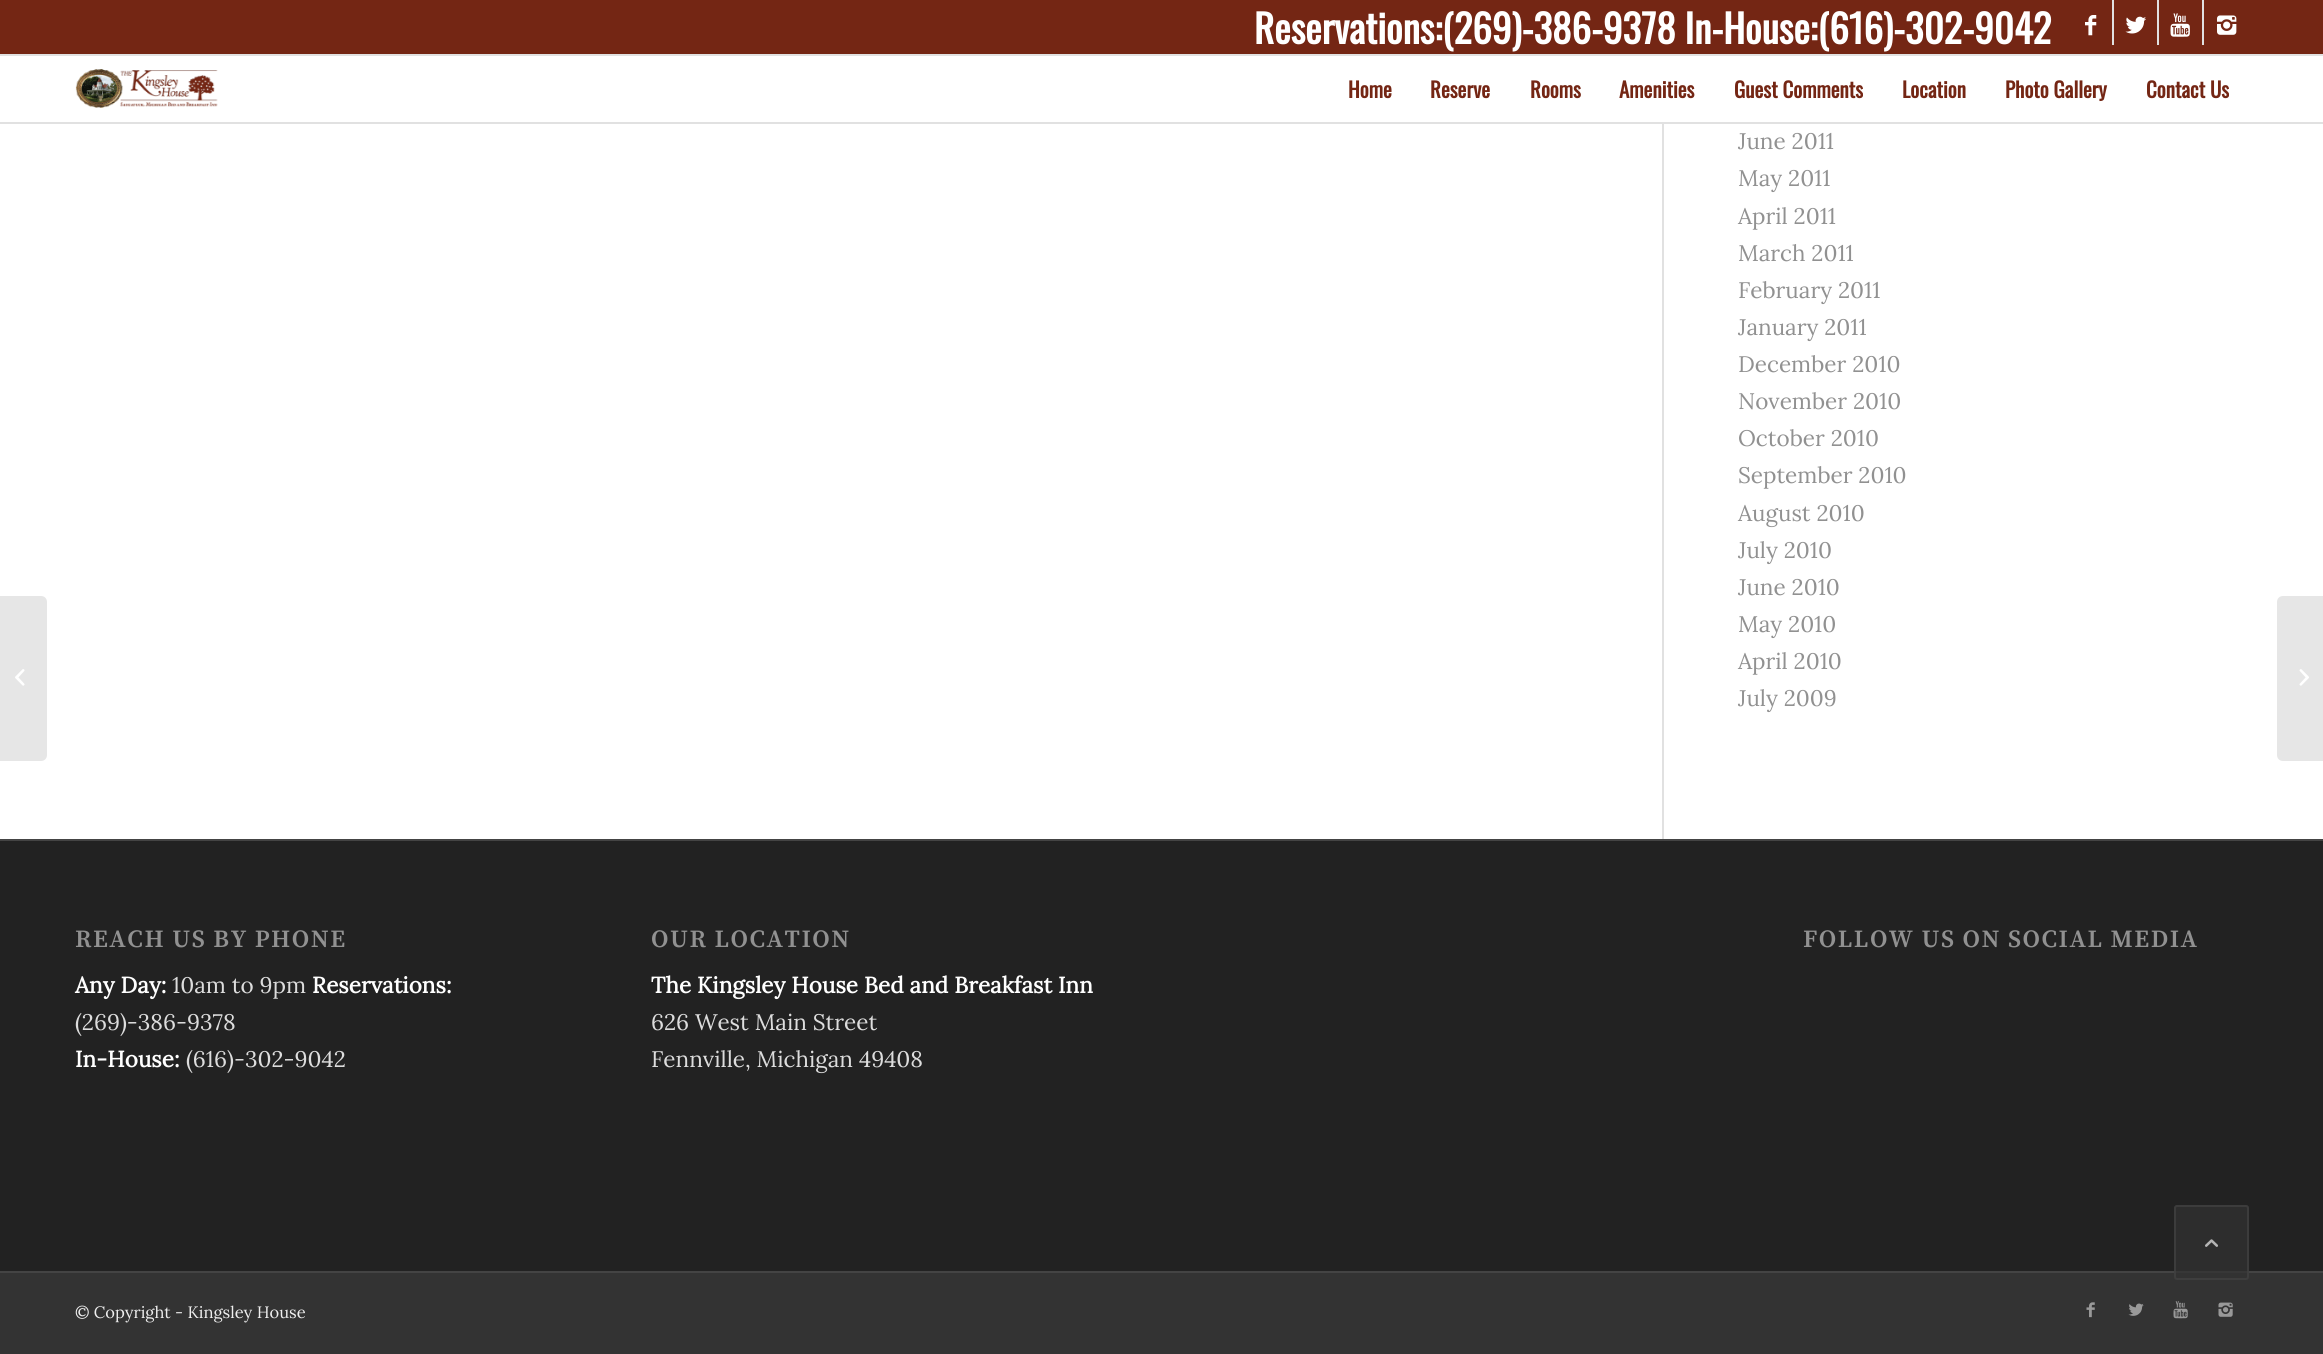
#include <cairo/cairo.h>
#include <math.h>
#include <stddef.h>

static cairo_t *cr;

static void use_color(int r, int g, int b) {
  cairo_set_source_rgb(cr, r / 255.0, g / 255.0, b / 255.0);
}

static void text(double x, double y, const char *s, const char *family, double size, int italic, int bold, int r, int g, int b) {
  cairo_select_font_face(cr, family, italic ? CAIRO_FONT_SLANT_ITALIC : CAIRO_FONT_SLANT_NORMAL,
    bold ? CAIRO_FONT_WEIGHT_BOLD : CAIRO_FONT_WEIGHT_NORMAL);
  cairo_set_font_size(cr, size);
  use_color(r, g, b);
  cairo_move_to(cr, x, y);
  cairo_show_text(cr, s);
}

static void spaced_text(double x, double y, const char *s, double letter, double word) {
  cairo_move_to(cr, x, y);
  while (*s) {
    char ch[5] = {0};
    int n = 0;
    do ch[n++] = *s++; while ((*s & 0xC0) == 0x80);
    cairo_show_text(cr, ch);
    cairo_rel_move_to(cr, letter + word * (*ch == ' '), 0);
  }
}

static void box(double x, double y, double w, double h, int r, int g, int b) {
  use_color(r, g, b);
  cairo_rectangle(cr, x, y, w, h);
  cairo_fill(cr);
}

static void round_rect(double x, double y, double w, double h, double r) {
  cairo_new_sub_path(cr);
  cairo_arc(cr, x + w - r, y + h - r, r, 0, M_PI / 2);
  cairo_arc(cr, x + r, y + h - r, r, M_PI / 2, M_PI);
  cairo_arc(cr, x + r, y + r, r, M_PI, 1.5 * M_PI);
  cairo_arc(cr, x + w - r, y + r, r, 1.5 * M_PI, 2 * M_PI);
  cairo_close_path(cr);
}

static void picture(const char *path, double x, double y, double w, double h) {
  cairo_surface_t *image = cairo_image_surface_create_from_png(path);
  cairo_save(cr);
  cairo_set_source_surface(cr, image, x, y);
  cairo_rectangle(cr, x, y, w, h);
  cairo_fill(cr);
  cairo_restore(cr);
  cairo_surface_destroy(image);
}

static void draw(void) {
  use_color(255, 255, 255);
  cairo_paint(cr);
  box(0, 0, 2323, 54, 116, 38, 20);
  box(0, 54, 2323, 2, 225, 225, 225);
  box(2112, 0, 2, 45, 225, 225, 225);
  picture("img_01.png", 2085, 15, 12, 21);
  box(2157, 0, 2, 45, 225, 225, 225);
  picture("img_02.png", 2125, 16, 21, 18);
  box(2202, 0, 2, 45, 225, 225, 225);
  picture("img_03.png", 2170, 13, 20, 24);
  picture("img_04.png", 2217, 15, 20, 20);
  box(0, 122, 2323, 2, 225, 225, 225);
  picture("img_05.png", 75, 69, 143, 39);
  use_color(230, 230, 230);
  cairo_new_path(cr);
  cairo_move_to(cr, 0, 596);
  cairo_line_to(cr, 41, 596);
  cairo_curve_to(cr, 44.5, 596, 47, 598.5, 47, 602);
  cairo_line_to(cr, 47, 755);
  cairo_curve_to(cr, 47, 758.5, 44.5, 761, 41, 761);
  cairo_line_to(cr, 0, 761);
  cairo_close_path(cr);
  cairo_fill(cr);
  picture("img_06.png", 15, 669, 10, 17);
  box(1662, 124, 2, 715, 225, 225, 225);
  box(0, 841, 2323, 430, 34, 34, 34);
  box(0, 839, 2323, 2, 68, 68, 68);
  box(0, 1273, 2323, 81, 51, 51, 51);
  box(0, 1271, 2323, 2, 68, 68, 68);
  picture("img_07.png", 2086, 1302, 9, 16);
  picture("img_08.png", 2128, 1303, 16, 13);
  picture("img_09.png", 2173, 1301, 15, 18);
  picture("img_10.png", 2218, 1302, 15, 15);
  use_color(230, 230, 230);
  cairo_new_path(cr);
  cairo_move_to(cr, 2283, 596);
  cairo_line_to(cr, 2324, 596);
  cairo_line_to(cr, 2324, 761);
  cairo_line_to(cr, 2283, 761);
  cairo_curve_to(cr, 2279.5, 761, 2277, 758.5, 2277, 755);
  cairo_line_to(cr, 2277, 602);
  cairo_curve_to(cr, 2277, 598.5, 2279.5, 596, 2283, 596);
  cairo_close_path(cr);
  cairo_fill(cr);
  picture("img_11.png", 2299, 669, 10, 17);
  cairo_set_source_rgba(cr, 0.2, 0.2, 0.2, 0.7);
  round_rect(2174, 1205, 75, 75, 3);
  cairo_fill(cr);
  round_rect(2175, 1206, 73, 73, 2);
  cairo_set_source_rgba(cr, 0.267, 0.267, 0.267, 0.7);
  cairo_stroke(cr);
  picture("img_12.png", 2205, 1239, 13, 8);
  text(1254, 44, "Reservations:(269)-386-9378 In-House:(616)-302-9042", "Oswald", 39, 0, 1, 255, 255, 255);
  text(1348, 98, "Home", "Oswald", 21, 0, 1, 116, 38, 20);
  text(1430, 98, "Reserve", "Oswald", 21, 0, 1, 116, 38, 20);
  text(1530, 98, "Rooms", "Oswald", 21, 0, 1, 116, 38, 20);
  text(1619, 98, "Amenities", "Oswald", 21, 0, 1, 116, 38, 20);
  text(1734, 98, "Guest Comments", "Oswald", 21, 0, 1, 116, 38, 20);
  text(1902, 98, "Location", "Oswald", 21, 0, 1, 116, 38, 20);
  text(2005, 98, "Photo Gallery", "Oswald", 21, 0, 1, 116, 38, 20);
  text(2146, 98, "Contact Us", "Oswald", 21, 0, 1, 116, 38, 20);
  text(1738, 149, "June 2011", "Lora", 22.5, 0, 0, 145, 145, 145);
  text(1738, 186, "May 2011", "Lora", 22.5, 0, 0, 145, 145, 145);
  text(1738, 224, "April 2011", "Lora", 22.5, 0, 0, 145, 145, 145);
  text(1738, 261, "March 2011", "Lora", 22.5, 0, 0, 145, 145, 145);
  text(1738, 298, "February 2011", "Lora", 22.5, 0, 0, 145, 145, 145);
  text(1738, 335, "January 2011", "Lora", 22.5, 0, 0, 145, 145, 145);
  text(1738, 372, "December 2010", "Lora", 22.5, 0, 0, 145, 145, 145);
  text(1738, 409, "November 2010", "Lora", 22.5, 0, 0, 145, 145, 145);
  text(1738, 446, "October 2010", "Lora", 22.5, 0, 0, 145, 145, 145);
  text(1738, 483, "September 2010", "Lora", 22.5, 0, 0, 145, 145, 145);
  text(1738, 521, "August 2010", "Lora", 22.5, 0, 0, 145, 145, 145);
  text(1738, 558, "July 2010", "Lora", 22.5, 0, 0, 145, 145, 145);
  text(1738, 595, "June 2010", "Lora", 22.5, 0, 0, 145, 145, 145);
  text(1738, 632, "May 2010", "Lora", 22.5, 0, 0, 145, 145, 145);
  text(1738, 669, "April 2010", "Lora", 22.5, 0, 0, 145, 145, 145);
  text(1738, 706, "July 2009", "Lora", 22.5, 0, 0, 145, 145, 145);
  cairo_select_font_face(cr, "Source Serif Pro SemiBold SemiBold", CAIRO_FONT_SLANT_NORMAL, CAIRO_FONT_WEIGHT_NORMAL);
  cairo_set_font_size(cr, 24.75);
  spaced_text(75, 947, "REACH US BY PHONE", 1.5, 0);
  text(75, 993, "Any Day:", "Lora", 22.5, 0, 1, 255, 255, 255);
  text(172, 993, "10am to 9pm", "Lora", 22.5, 0, 0, 221, 221, 221);
  text(312, 993, "Reservations:", "Lora", 22.5, 0, 1, 255, 255, 255);
  text(75, 1030, "(269)-386-9378", "Lora", 22.5, 0, 0, 221, 221, 221);
  text(75, 1067, "In-House:", "Lora", 22.5, 0, 1, 255, 255, 255);
  text(186, 1067, "(616)-302-9042", "Lora", 22.5, 0, 0, 221, 221, 221);
  cairo_select_font_face(cr, "Source Serif Pro SemiBold SemiBold", CAIRO_FONT_SLANT_NORMAL, CAIRO_FONT_WEIGHT_NORMAL);
  cairo_set_font_size(cr, 24.75);
  use_color(145, 145, 145);
  spaced_text(651, 947, "OUR LOCATION", 1.5, 0);
  text(651, 993, "The Kingsley House Bed and Breakfast Inn", "Lora", 22.5, 0, 1, 255, 255, 255);
  text(651, 1030, "626 West Main Street", "Lora", 22.5, 0, 0, 221, 221, 221);
  text(651, 1067, "Fennville, Michigan 49408", "Lora", 22.5, 0, 0, 221, 221, 221);
  cairo_select_font_face(cr, "Source Serif Pro SemiBold SemiBold", CAIRO_FONT_SLANT_NORMAL, CAIRO_FONT_WEIGHT_NORMAL);
  cairo_set_font_size(cr, 24.75);
  use_color(145, 145, 145);
  spaced_text(1803, 947, "FOLLOW US ON SOCIAL MEDIA", 1.5, 0);
  text(75, 1318, "© Copyright - Kingsley House", "Lora", 16.5, 0, 0, 238, 238, 238);
}

int main(void) {
  cairo_surface_t *surface = cairo_image_surface_create(CAIRO_FORMAT_RGB24, 2323, 1354);
  cr = cairo_create(surface);
  cairo_font_options_t *options = cairo_font_options_create();
  cairo_font_options_set_hint_metrics(options, CAIRO_HINT_METRICS_OFF);
  cairo_font_options_set_hint_style(options, CAIRO_HINT_STYLE_NONE);
  cairo_set_font_options(cr, options);
  cairo_set_miter_limit(cr, 4);
  draw();
  cairo_surface_write_to_png(surface, "out.png");
  cairo_font_options_destroy(options);
  cairo_destroy(cr);
  cairo_surface_destroy(surface);
  return 0;
}
